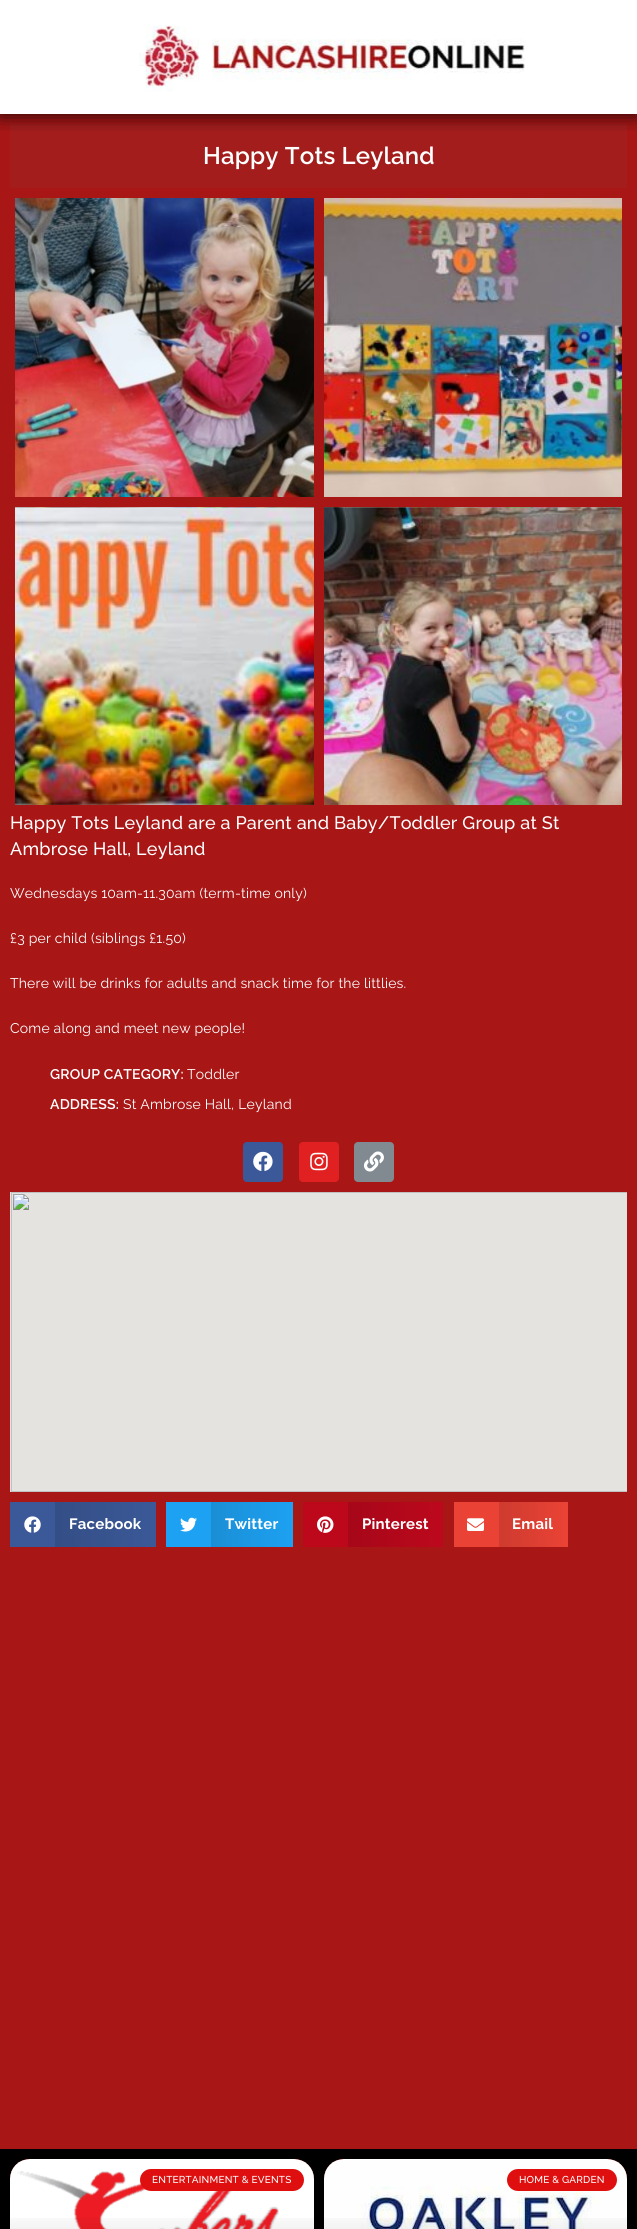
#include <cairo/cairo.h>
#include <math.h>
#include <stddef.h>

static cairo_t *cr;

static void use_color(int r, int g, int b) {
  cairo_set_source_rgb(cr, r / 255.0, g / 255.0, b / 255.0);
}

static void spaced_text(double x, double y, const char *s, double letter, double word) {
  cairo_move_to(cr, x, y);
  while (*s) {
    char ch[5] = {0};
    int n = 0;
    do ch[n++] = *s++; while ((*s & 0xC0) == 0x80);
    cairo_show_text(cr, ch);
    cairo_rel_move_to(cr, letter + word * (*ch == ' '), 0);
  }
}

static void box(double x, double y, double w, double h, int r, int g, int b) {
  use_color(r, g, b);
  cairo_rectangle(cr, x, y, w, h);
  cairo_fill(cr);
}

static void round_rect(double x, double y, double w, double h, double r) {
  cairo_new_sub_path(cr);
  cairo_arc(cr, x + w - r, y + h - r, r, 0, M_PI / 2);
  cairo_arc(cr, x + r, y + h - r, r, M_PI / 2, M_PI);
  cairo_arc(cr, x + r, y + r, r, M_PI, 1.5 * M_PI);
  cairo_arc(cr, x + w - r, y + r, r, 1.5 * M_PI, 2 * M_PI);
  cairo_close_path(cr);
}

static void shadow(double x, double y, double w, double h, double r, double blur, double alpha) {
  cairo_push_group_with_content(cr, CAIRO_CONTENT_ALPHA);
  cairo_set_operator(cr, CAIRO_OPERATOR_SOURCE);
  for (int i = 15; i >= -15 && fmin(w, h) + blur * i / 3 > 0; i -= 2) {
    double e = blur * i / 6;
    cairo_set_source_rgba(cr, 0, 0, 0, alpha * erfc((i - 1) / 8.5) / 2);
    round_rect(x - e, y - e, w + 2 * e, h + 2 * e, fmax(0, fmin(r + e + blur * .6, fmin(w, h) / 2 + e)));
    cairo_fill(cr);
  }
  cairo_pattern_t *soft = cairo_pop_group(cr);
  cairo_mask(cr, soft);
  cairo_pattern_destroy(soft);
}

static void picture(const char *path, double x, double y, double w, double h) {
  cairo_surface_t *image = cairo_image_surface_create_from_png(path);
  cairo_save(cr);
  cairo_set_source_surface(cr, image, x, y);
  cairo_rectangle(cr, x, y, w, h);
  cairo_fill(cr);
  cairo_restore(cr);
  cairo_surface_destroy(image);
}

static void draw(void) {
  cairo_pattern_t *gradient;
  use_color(168, 22, 22);
  cairo_paint(cr);
  box(0, 0, 637, 114, 255, 255, 255);
  box(10, 124, 617, 64, 164, 29, 29);
  cairo_save(cr);
  cairo_rectangle(cr, 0, 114, 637, 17);
  cairo_clip(cr);
  use_color(0, 0, 0);
  shadow(0, 0, 637, 114, 0, 10, 0.5);
  shadow(0, 0, 637, 114, 0, 10, 0.5);
  cairo_restore(cr);
  picture("img_01.png", 139, 25, 386, 67);
  picture("img_02.png", 15, 198, 299, 299);
  picture("img_03.png", 324, 198, 298, 299);
  picture("img_04.png", 15, 507, 299, 298);
  picture("img_05.png", 324, 507, 298, 298);
  use_color(59, 89, 152);
  round_rect(243, 1142, 40, 40, 4);
  cairo_fill(cr);
  picture("img_06.png", 253, 1151, 20, 20);
  use_color(225, 33, 33);
  round_rect(299, 1142, 40, 40, 4);
  cairo_fill(cr);
  picture("img_07.png", 310, 1152, 18, 19);
  use_color(129, 138, 145);
  round_rect(354, 1142, 40, 40, 4);
  cairo_fill(cr);
  picture("img_08.png", 363, 1151, 21, 21);
  picture("img_09.png", 10, 1192, 617, 300);
  box(10, 1502, 45, 45, 59, 89, 152);
  picture("img_10.png", 24, 1516, 17, 17);
  gradient = cairo_pattern_create_linear(55, 1525, 156, 1525);
  cairo_pattern_add_color_stop_rgba(gradient, 0, 0.204, 0.306, 0.525, 1);
  cairo_pattern_add_color_stop_rgba(gradient, 1, 0.231, 0.349, 0.596, 1);
  cairo_set_source(cr, gradient);
  cairo_pattern_destroy(gradient);
  cairo_rectangle(cr, 55, 1502, 101, 45);
  cairo_fill(cr);
  box(166, 1502, 45, 45, 29, 161, 242);
  picture("img_11.png", 180, 1517, 17, 15);
  gradient = cairo_pattern_create_linear(211, 1525, 293, 1525);
  cairo_pattern_add_color_stop_rgba(gradient, 0, 0.102, 0.557, 0.835, 1);
  cairo_pattern_add_color_stop_rgba(gradient, 1, 0.114, 0.631, 0.949, 1);
  cairo_set_source(cr, gradient);
  cairo_pattern_destroy(gradient);
  cairo_rectangle(cr, 211, 1502, 82, 45);
  cairo_fill(cr);
  box(303, 1502, 45, 45, 189, 8, 28);
  picture("img_12.png", 317, 1516, 17, 17);
  gradient = cairo_pattern_create_linear(348, 1525, 443, 1525);
  cairo_pattern_add_color_stop_rgba(gradient, 0, 0.651, 0.027, 0.098, 1);
  cairo_pattern_add_color_stop_rgba(gradient, 1, 0.741, 0.031, 0.11, 1);
  cairo_set_source(cr, gradient);
  cairo_pattern_destroy(gradient);
  cairo_rectangle(cr, 348, 1502, 95, 45);
  cairo_fill(cr);
  box(454, 1502, 45, 45, 234, 67, 53);
  picture("img_13.png", 467, 1518, 17, 13);
  gradient = cairo_pattern_create_linear(499, 1525, 568, 1525);
  cairo_pattern_add_color_stop_rgba(gradient, 0, 0.808, 0.231, 0.184, 1);
  cairo_pattern_add_color_stop_rgba(gradient, 1, 0.918, 0.263, 0.208, 1);
  cairo_set_source(cr, gradient);
  cairo_pattern_destroy(gradient);
  cairo_rectangle(cr, 499, 1502, 69, 45);
  cairo_fill(cr);
  box(0, 2149, 637, 80, 0, 0, 0);
  use_color(168, 22, 22);
  round_rect(10, 2159, 304, 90, 20);
  cairo_fill(cr);
  picture("img_14.png", 10, 2159, 304, 70);
  gradient = cairo_pattern_create_linear(162, 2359, 162, 2159);
  cairo_pattern_add_color_stop_rgba(gradient, 0, 0, 0, 0, 0.35);
  cairo_pattern_add_color_stop_rgba(gradient, 0.75, 0, 0, 0, 0);
  cairo_set_source(cr, gradient);
  cairo_pattern_destroy(gradient);
  cairo_rectangle(cr, 10, 2218, 304, 11);
  cairo_fill(cr);
  use_color(224, 15, 15);
  round_rect(140, 2169, 164, 22, 11);
  cairo_fill(cr);
  use_color(168, 22, 22);
  round_rect(324, 2159, 303, 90, 20);
  cairo_fill(cr);
  picture("img_15.png", 324, 2159, 303, 70);
  gradient = cairo_pattern_create_linear(476, 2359, 476, 2159);
  cairo_pattern_add_color_stop_rgba(gradient, 0, 0, 0, 0, 0.35);
  cairo_pattern_add_color_stop_rgba(gradient, 0.75, 0, 0, 0, 0);
  cairo_set_source(cr, gradient);
  cairo_pattern_destroy(gradient);
  cairo_rectangle(cr, 324, 2218, 303, 11);
  cairo_fill(cr);
  use_color(224, 15, 15);
  round_rect(507, 2169, 110, 22, 11);
  cairo_fill(cr);
  cairo_select_font_face(cr, "Raleway SemiBold", CAIRO_FONT_SLANT_NORMAL, CAIRO_FONT_WEIGHT_NORMAL);
  cairo_set_font_size(cr, 24);
  use_color(255, 255, 255);
  spaced_text(203, 164, "Happy Tots Leyland", 0.2, 0);
  cairo_select_font_face(cr, "Raleway Medium", CAIRO_FONT_SLANT_NORMAL, CAIRO_FONT_WEIGHT_NORMAL);
  cairo_set_font_size(cr, 18);
  spaced_text(10, 829, "Happy Tots Leyland are a Parent and Baby/Toddler Group at St", 0.2, 0);
  spaced_text(10, 855, "Ambrose Hall, Leyland", 0.2, 0);
  cairo_select_font_face(cr, "Raleway", CAIRO_FONT_SLANT_NORMAL, CAIRO_FONT_WEIGHT_NORMAL);
  cairo_set_font_size(cr, 14);
  spaced_text(10, 898, "Wednesdays 10am-11.30am (term-time only)", 0.2, 0);
  spaced_text(10, 943, "£3 per child (siblings £1.50)", 0.2, 0);
  spaced_text(10, 988, "There will be drinks for adults and snack time for the littlies.", 0.2, 0);
  spaced_text(10, 1033, "Come along and meet new people!", 0.2, 0);
  cairo_select_font_face(cr, "Raleway SemiBold", CAIRO_FONT_SLANT_NORMAL, CAIRO_FONT_WEIGHT_NORMAL);
  spaced_text(50, 1079, "GROUP CATEGORY:", 0.2, 0);
  cairo_select_font_face(cr, "Raleway", CAIRO_FONT_SLANT_NORMAL, CAIRO_FONT_WEIGHT_NORMAL);
  spaced_text(187, 1079, "Toddler", 0.2, 0);
  cairo_select_font_face(cr, "Raleway SemiBold", CAIRO_FONT_SLANT_NORMAL, CAIRO_FONT_WEIGHT_NORMAL);
  spaced_text(50, 1109, "ADDRESS:", 0.2, 0);
  cairo_select_font_face(cr, "Raleway", CAIRO_FONT_SLANT_NORMAL, CAIRO_FONT_WEIGHT_NORMAL);
  spaced_text(123, 1109, "St Ambrose Hall, Leyland", 0.2, 0);
  cairo_select_font_face(cr, "Raleway", CAIRO_FONT_SLANT_NORMAL, CAIRO_FONT_WEIGHT_BOLD);
  cairo_set_font_size(cr, 15);
  spaced_text(69, 1529, "Facebook", 0.2, 0);
  spaced_text(225, 1529, "Twitter", 0.2, 0);
  spaced_text(362, 1529, "Pinterest", 0.2, 0);
  spaced_text(512, 1529, "Email", 0.2, 0);
  cairo_select_font_face(cr, "Raleway Medium", CAIRO_FONT_SLANT_NORMAL, CAIRO_FONT_WEIGHT_NORMAL);
  cairo_set_font_size(cr, 10);
  spaced_text(152, 2183, "ENTERTAINMENT & EVENTS", 0.2, 0);
  spaced_text(519, 2183, "HOME & GARDEN", 0.2, 0);
}

int main(void) {
  cairo_surface_t *surface = cairo_image_surface_create(CAIRO_FORMAT_RGB24, 637, 2229);
  cr = cairo_create(surface);
  cairo_font_options_t *options = cairo_font_options_create();
  cairo_font_options_set_hint_metrics(options, CAIRO_HINT_METRICS_OFF);
  cairo_font_options_set_hint_style(options, CAIRO_HINT_STYLE_NONE);
  cairo_set_font_options(cr, options);
  cairo_set_miter_limit(cr, 4);
  draw();
  cairo_surface_write_to_png(surface, "out.png");
  cairo_font_options_destroy(options);
  cairo_destroy(cr);
  cairo_surface_destroy(surface);
  return 0;
}
